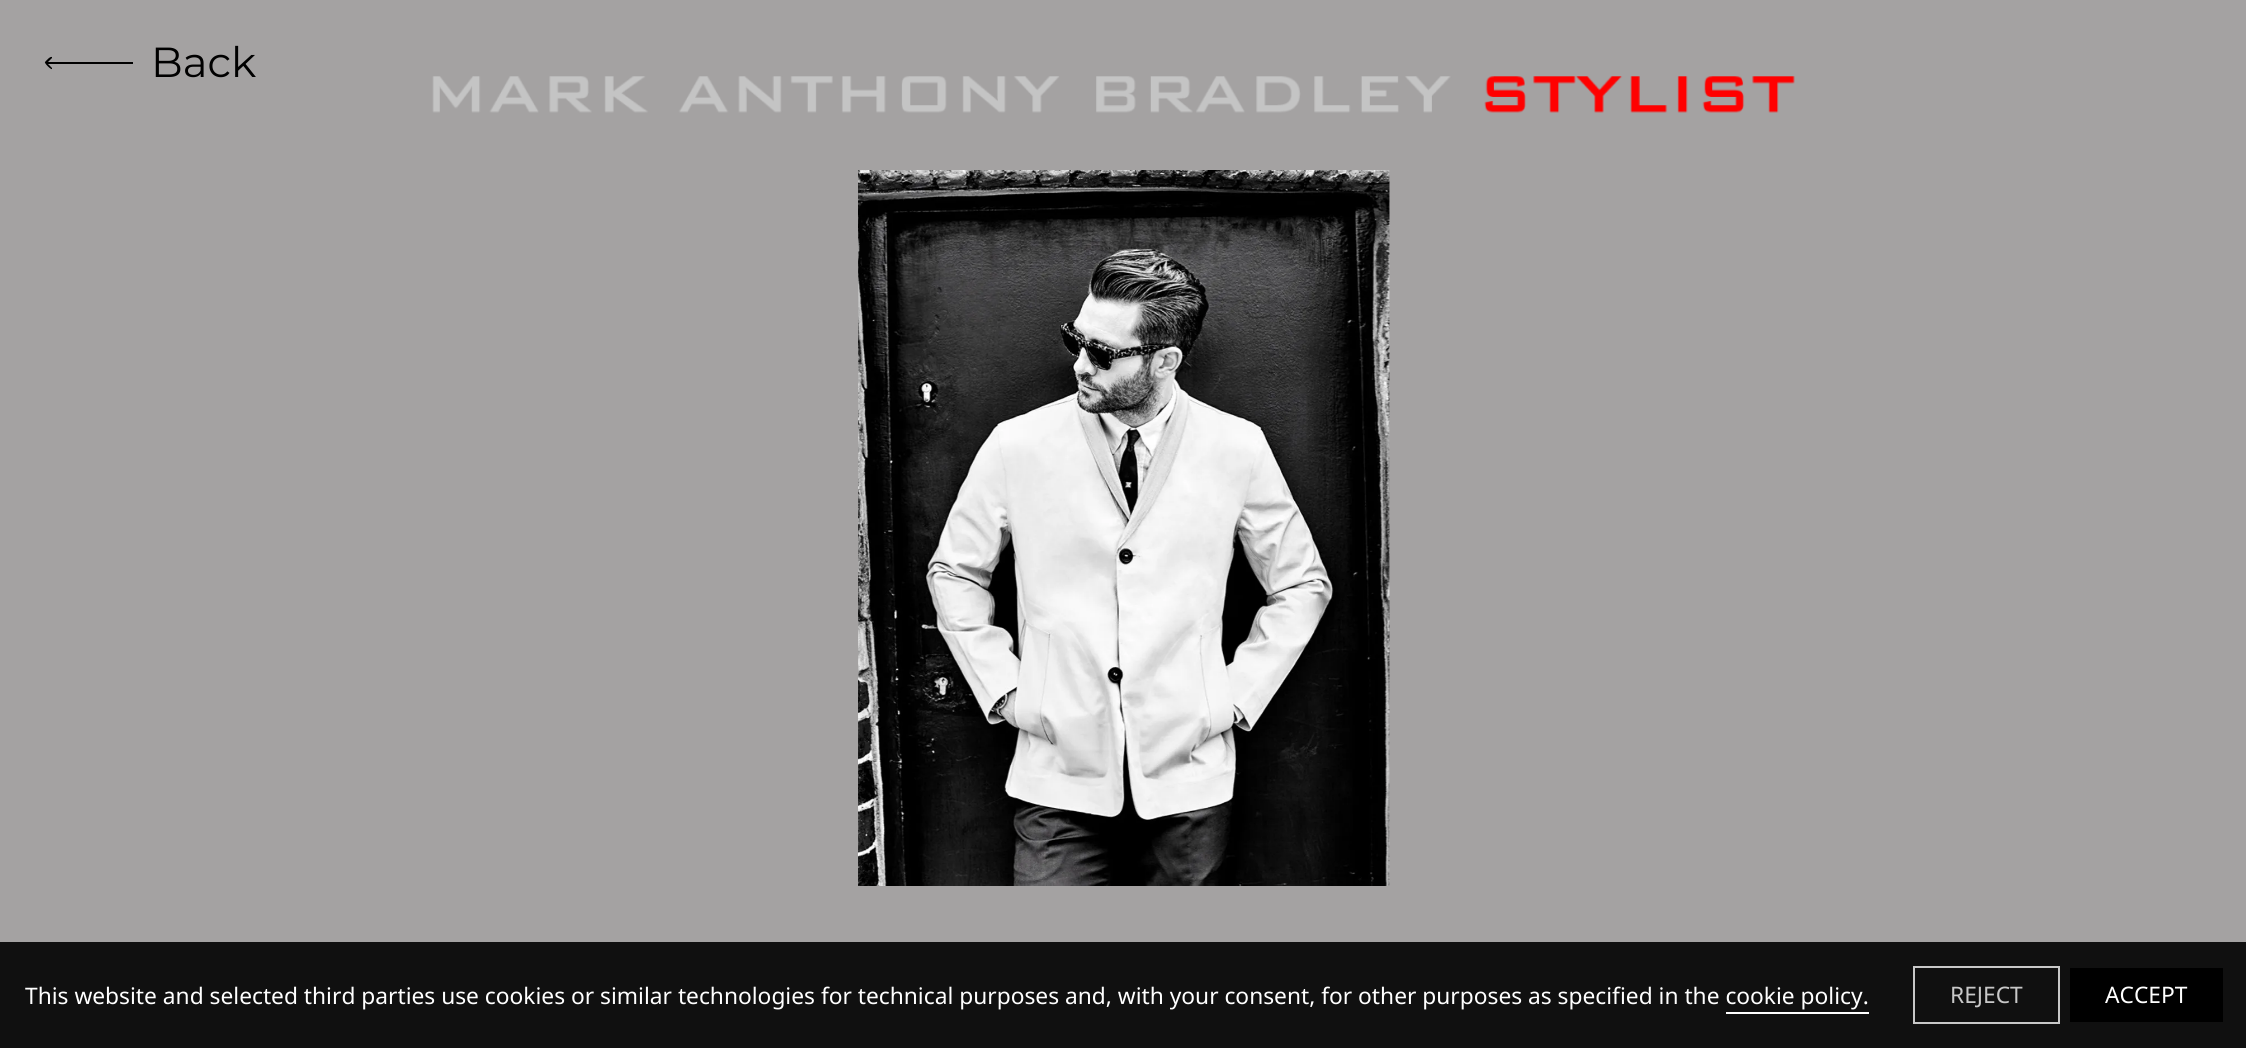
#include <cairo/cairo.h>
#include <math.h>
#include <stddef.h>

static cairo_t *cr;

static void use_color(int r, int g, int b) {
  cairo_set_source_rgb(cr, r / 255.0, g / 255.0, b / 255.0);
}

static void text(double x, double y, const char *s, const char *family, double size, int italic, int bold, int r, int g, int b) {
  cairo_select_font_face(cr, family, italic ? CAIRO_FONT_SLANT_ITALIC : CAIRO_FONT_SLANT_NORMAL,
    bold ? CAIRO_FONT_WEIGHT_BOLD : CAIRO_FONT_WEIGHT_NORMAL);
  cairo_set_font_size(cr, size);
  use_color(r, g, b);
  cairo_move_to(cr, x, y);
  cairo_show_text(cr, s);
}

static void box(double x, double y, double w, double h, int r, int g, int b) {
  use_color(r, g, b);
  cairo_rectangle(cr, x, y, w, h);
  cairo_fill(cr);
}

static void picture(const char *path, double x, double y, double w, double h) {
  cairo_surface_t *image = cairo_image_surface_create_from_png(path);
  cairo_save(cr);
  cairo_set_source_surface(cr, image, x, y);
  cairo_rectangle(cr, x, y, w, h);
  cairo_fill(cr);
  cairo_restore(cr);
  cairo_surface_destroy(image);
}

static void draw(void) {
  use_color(164, 162, 162);
  cairo_paint(cr);
  use_color(0, 0, 0);
  cairo_new_path(cr);
  cairo_move_to(cr, 45, 62);
  cairo_curve_to(cr, 44, 63, 51, 70, 52, 69);
  cairo_line_to(cr, 52, 68);
  cairo_line_to(cr, 47, 63);
  cairo_line_to(cr, 52, 58);
  cairo_line_to(cr, 52, 57);
  cairo_curve_to(cr, 50, 56, 46, 61, 45, 62);
  cairo_close_path(cr);
  cairo_move_to(cr, 133, 62);
  cairo_line_to(cr, 46, 62);
  cairo_line_to(cr, 46, 64);
  cairo_line_to(cr, 133, 64);
  cairo_close_path(cr);
  cairo_fill(cr);
  picture("img_01.png", 858, 170, 532, 716);
  picture("img_02.png", 432, 76, 1363, 37);
  cairo_set_source_rgba(cr, 0, 0, 0, 0.9);
  cairo_rectangle(cr, 0, 942, 2246, 106);
  cairo_fill(cr);
  box(1726, 1012, 143, 2, 255, 255, 255);
  cairo_rectangle(cr, 1914, 967, 145, 56);
  use_color(200, 200, 200);
  cairo_stroke(cr);
  box(2070, 968, 153, 54, 0, 0, 0);
  text(151, 77, "Back", "Montserrat", 42, 0, 0, 0, 0, 0);
  text(25, 1004, "This website and selected third parties use cookies or similar technologies for technical purposes and, with your consent, for other purposes as specified in the cookie policy.", "Noto Sans", 22.75, 0, 0, 255, 255, 255);
  text(1950, 1003, "REJECT", "Noto Sans", 22.75, 0, 0, 200, 200, 200);
  text(2105, 1003, "ACCEPT", "Noto Sans", 22.75, 0, 0, 255, 255, 255);
}

int main(void) {
  cairo_surface_t *surface = cairo_image_surface_create(CAIRO_FORMAT_RGB24, 2246, 1048);
  cr = cairo_create(surface);
  cairo_font_options_t *options = cairo_font_options_create();
  cairo_font_options_set_hint_metrics(options, CAIRO_HINT_METRICS_OFF);
  cairo_font_options_set_hint_style(options, CAIRO_HINT_STYLE_NONE);
  cairo_set_font_options(cr, options);
  cairo_set_miter_limit(cr, 4);
  draw();
  cairo_surface_write_to_png(surface, "out.png");
  cairo_font_options_destroy(options);
  cairo_destroy(cr);
  cairo_surface_destroy(surface);
  return 0;
}
